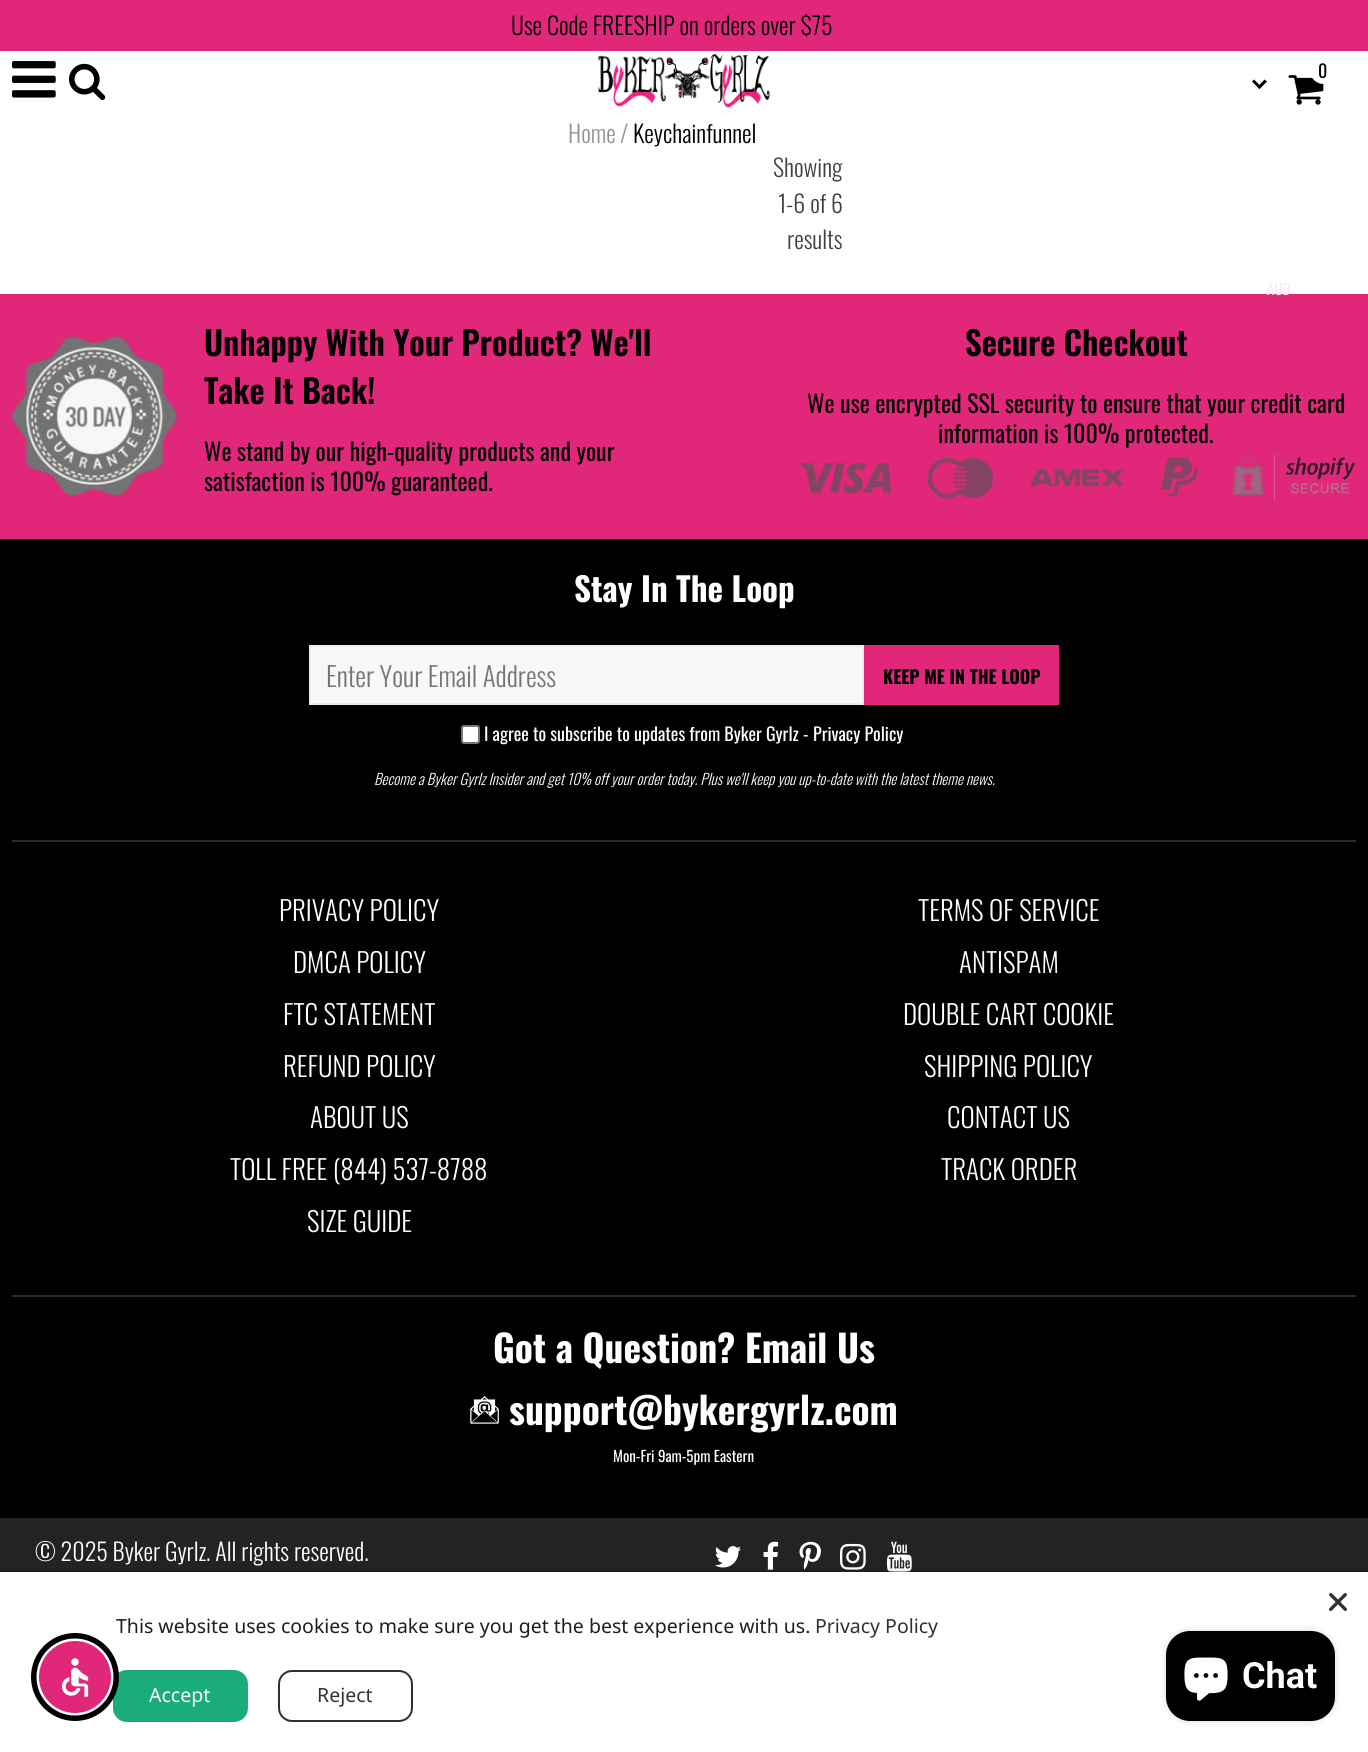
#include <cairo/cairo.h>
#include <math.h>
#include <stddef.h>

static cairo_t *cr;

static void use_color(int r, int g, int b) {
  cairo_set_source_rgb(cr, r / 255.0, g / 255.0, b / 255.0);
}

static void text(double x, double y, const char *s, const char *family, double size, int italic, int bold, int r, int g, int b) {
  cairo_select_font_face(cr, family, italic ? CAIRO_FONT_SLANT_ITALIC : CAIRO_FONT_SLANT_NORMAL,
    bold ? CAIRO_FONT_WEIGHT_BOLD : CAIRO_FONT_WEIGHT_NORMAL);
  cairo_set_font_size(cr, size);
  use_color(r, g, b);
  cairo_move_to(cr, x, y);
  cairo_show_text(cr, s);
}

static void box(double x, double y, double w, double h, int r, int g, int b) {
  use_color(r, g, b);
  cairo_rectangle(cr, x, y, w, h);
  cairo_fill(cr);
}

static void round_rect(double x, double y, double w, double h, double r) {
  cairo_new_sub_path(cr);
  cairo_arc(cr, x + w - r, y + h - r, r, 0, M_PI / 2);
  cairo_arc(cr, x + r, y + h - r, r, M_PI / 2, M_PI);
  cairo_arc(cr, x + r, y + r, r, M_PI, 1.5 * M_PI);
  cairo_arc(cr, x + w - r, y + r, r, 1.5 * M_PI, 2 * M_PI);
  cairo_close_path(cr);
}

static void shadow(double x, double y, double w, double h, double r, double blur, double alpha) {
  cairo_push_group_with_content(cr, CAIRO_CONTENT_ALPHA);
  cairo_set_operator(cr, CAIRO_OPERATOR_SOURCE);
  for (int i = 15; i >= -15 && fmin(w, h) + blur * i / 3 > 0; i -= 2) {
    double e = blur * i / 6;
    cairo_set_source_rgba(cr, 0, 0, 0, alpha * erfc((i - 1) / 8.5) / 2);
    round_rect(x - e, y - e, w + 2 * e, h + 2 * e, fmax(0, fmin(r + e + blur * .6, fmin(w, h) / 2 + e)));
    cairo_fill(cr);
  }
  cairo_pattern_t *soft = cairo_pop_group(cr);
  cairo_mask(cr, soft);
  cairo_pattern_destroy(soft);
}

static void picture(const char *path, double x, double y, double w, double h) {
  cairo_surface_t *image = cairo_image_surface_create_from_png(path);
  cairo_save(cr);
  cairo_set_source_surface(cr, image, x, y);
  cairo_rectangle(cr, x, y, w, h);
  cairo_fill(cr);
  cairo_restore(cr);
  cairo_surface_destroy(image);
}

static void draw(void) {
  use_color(255, 255, 255);
  cairo_paint(cr);
  box(0, 0, 1368, 51, 224, 39, 122);
  picture("img_01.png", 12, 61, 44, 37);
  picture("img_02.png", 69, 63, 37, 38);
  picture("img_03.png", 598, 54, 172, 54);
  picture("img_04.png", 1288, 75, 36, 30);
  use_color(255, 255, 255);
  cairo_arc(cr, 1323.5, 70.5, 12.5, 0, 2 * M_PI);
  cairo_fill_preserve(cr);
  cairo_stroke(cr);
  use_color(0, 0, 0);
  cairo_new_path(cr);
  cairo_move_to(cr, 1264.5, 79.5);
  cairo_line_to(cr, 1267, 81.5);
  cairo_line_to(cr, 1259.5, 89);
  cairo_line_to(cr, 1257.5, 87);
  cairo_close_path(cr);
  cairo_fill(cr);
  cairo_new_path(cr);
  cairo_move_to(cr, 1254, 79.5);
  cairo_line_to(cr, 1261.5, 87);
  cairo_line_to(cr, 1259.5, 89);
  cairo_line_to(cr, 1252, 81.5);
  cairo_close_path(cr);
  cairo_fill(cr);
  box(0, 294, 1368, 245, 224, 39, 122);
  picture("img_05.png", 12, 336, 165, 161);
  picture("img_06.png", 796, 454, 560, 47);
  box(0, 539, 1368, 979, 0, 0, 0);
  use_color(248, 248, 248);
  cairo_rectangle(cr, 310, 646, 553, 58);
  cairo_fill_preserve(cr);
  use_color(235, 235, 235);
  cairo_stroke(cr);
  box(864, 645, 195, 60, 224, 39, 122);
  use_color(255, 255, 255);
  round_rect(462, 726, 17, 17, 2);
  cairo_fill_preserve(cr);
  use_color(118, 118, 118);
  cairo_stroke(cr);
  box(12, 840, 1344, 2, 43, 43, 43);
  box(12, 1295, 1344, 2, 43, 43, 43);
  picture("img_07.png", 470, 1396, 29, 28);
  box(0, 1518, 1368, 54, 35, 35, 35);
  picture("img_08.png", 715, 1546, 26, 22);
  picture("img_09.png", 763, 1541, 16, 29);
  picture("img_10.png", 799, 1541, 22, 29);
  picture("img_11.png", 840, 1543, 26, 27);
  picture("img_12.png", 886, 1541, 26, 31);
  use_color(0, 0, 0);
  shadow(0, 1572, 1368, 180, 0, 1.5, 0.5);
  box(0, 1572, 1368, 180, 255, 255, 255);
  picture("img_14.png", 1329, 1593, 18, 18);
  use_color(26, 172, 122);
  round_rect(113, 1670, 135, 52, 14);
  cairo_fill(cr);
  round_rect(279, 1671, 133, 50, 13);
  use_color(44, 51, 47);
  cairo_stroke(cr);
  use_color(0, 0, 0);
  shadow(1166, 1631, 169, 90, 24, 4, 0.15);
  use_color(0, 0, 0);
  round_rect(1166, 1631, 169, 90, 24);
  cairo_fill(cr);
  picture("img_15.png", 1184, 1657, 44, 44);
  text(511, 35, "Use Code FREESHIP on orders over $75", "Oswald Light", 24, 0, 0, 0, 0, 0);
  text(1318, 78, "0", "Oswald", 18, 0, 0, 0, 0, 0);
  text(1267, 295, "AUD", "Oswald", 15, 0, 0, 252, 232, 241);
  text(568, 143, "Home", "Oswald Light", 24, 0, 0, 148, 148, 148);
  text(620, 143, "/", "Oswald Light", 24, 0, 0, 148, 148, 148);
  text(633, 143, "Keychainfunnel", "Oswald Light", 24, 0, 0, 0, 0, 0);
  text(773, 177, "Showing", "Oswald Light", 24, 0, 0, 65, 65, 65);
  text(778, 213, "1-6 of 6", "Oswald Light", 24, 0, 0, 65, 65, 65);
  text(787, 249, "results", "Oswald Light", 24, 0, 0, 65, 65, 65);
  text(204, 356, "Unhappy With Your Product? We'll", "Oswald SemiBold", 33, 0, 0, 0, 0, 0);
  text(204, 404, "Take It Back!", "Oswald SemiBold", 33, 0, 0, 0, 0, 0);
  text(204, 461, "We stand by our high-quality products and your", "Oswald", 24, 0, 0, 0, 0, 0);
  text(204, 491, "satisfaction is 100% guaranteed.", "Oswald", 24, 0, 0, 0, 0, 0);
  text(965, 356, "Secure Checkout", "Oswald SemiBold", 33, 0, 0, 0, 0, 0);
  text(807, 413, "We use encrypted SSL security to ensure that your credit card", "Oswald", 24, 0, 0, 0, 0, 0);
  text(938, 443, "information is 100% protected.", "Oswald", 24, 0, 0, 0, 0, 0);
  text(574, 602, "Stay In The Loop", "Oswald", 33, 0, 1, 255, 255, 255);
  text(326, 687, "Enter Your Email Address", "Oswald Light", 27, 0, 0, 117, 117, 117);
  text(883, 684, "KEEP ME IN THE LOOP", "Oswald", 18, 0, 1, 0, 0, 0);
  text(484, 741, "I agree to subscribe to updates from Byker Gyrlz -", "Oswald", 18, 0, 0, 255, 255, 255);
  text(813, 741, "Privacy Policy", "Oswald", 18, 0, 0, 255, 255, 255);
  text(374, 785, "Become a Byker Gyrlz Insider and get 10% off your order today. Plus we'll keep you up-to-date with the latest theme news.", "Oswald Light", 15, 1, 0, 255, 255, 255);
  text(279, 921, "PRIVACY POLICY", "Oswald Light", 27, 0, 0, 255, 255, 255);
  text(918, 921, "TERMS OF SERVICE", "Oswald Light", 27, 0, 0, 255, 255, 255);
  text(293, 973, "DMCA POLICY", "Oswald Light", 27, 0, 0, 255, 255, 255);
  text(959, 973, "ANTISPAM", "Oswald Light", 27, 0, 0, 255, 255, 255);
  text(283, 1025, "FTC STATEMENT", "Oswald Light", 27, 0, 0, 255, 255, 255);
  text(903, 1025, "DOUBLE CART COOKIE", "Oswald Light", 27, 0, 0, 255, 255, 255);
  text(283, 1077, "REFUND POLICY", "Oswald Light", 27, 0, 0, 255, 255, 255);
  text(924, 1077, "SHIPPING POLICY", "Oswald Light", 27, 0, 0, 255, 255, 255);
  text(310, 1128, "ABOUT US", "Oswald Light", 27, 0, 0, 255, 255, 255);
  text(947, 1128, "CONTACT US", "Oswald Light", 27, 0, 0, 255, 255, 255);
  text(230, 1180, "TOLL FREE (844) 537-8788", "Oswald Light", 27, 0, 0, 255, 255, 255);
  text(941, 1180, "TRACK ORDER", "Oswald Light", 27, 0, 0, 255, 255, 255);
  text(307, 1232, "SIZE GUIDE", "Oswald Light", 27, 0, 0, 255, 255, 255);
  text(493, 1363, "Got a Question? Email Us", "Oswald", 37.5, 0, 1, 255, 255, 255);
  text(509, 1425, "support@bykergyrlz.com", "Oswald", 37.5, 0, 1, 255, 255, 255);
  text(613, 1462, "Mon-Fri 9am-5pm Eastern", "Oswald", 15, 0, 0, 255, 255, 255);
  text(35, 1561, "© 2025 Byker Gyrlz", "Oswald Light", 24, 0, 0, 255, 255, 255);
  text(206, 1561, ". All rights reserved.", "Oswald Light", 24, 0, 0, 255, 255, 255);
  text(116, 1633, "This website uses cookies to make sure you get the best experience with us.", "Noto Sans", 19.5, 0, 0, 29, 29, 29);
  use_color(0, 0, 0);
  cairo_new_path(cr);
  cairo_arc(cr, 75, 1677, 44, 0, 2 * M_PI);
  cairo_fill(cr);
  use_color(255, 255, 255);
  cairo_arc(cr, 75, 1677, 38.5, 0, 2 * M_PI);
  cairo_fill(cr);
  use_color(224, 39, 122);
  cairo_arc(cr, 75, 1677, 36, 0, 2 * M_PI);
  cairo_fill(cr);
  picture("img_13.png", 61, 1658, 28, 39);
  text(815, 1633, "Privacy Policy", "Noto Sans", 19.5, 0, 0, 44, 51, 47);
  text(149, 1702, "Accept", "Noto Sans", 19.5, 0, 0, 255, 255, 255);
  text(317, 1702, "Reject", "Noto Sans", 19.5, 0, 0, 44, 51, 47);
  text(1242, 1688, "Chat", "Roboto", 36, 0, 1, 255, 255, 255);
}

int main(void) {
  cairo_surface_t *surface = cairo_image_surface_create(CAIRO_FORMAT_RGB24, 1368, 1752);
  cr = cairo_create(surface);
  cairo_font_options_t *options = cairo_font_options_create();
  cairo_font_options_set_hint_metrics(options, CAIRO_HINT_METRICS_OFF);
  cairo_font_options_set_hint_style(options, CAIRO_HINT_STYLE_NONE);
  cairo_set_font_options(cr, options);
  cairo_set_miter_limit(cr, 4);
  draw();
  cairo_surface_write_to_png(surface, "out.png");
  cairo_font_options_destroy(options);
  cairo_destroy(cr);
  cairo_surface_destroy(surface);
  return 0;
}
